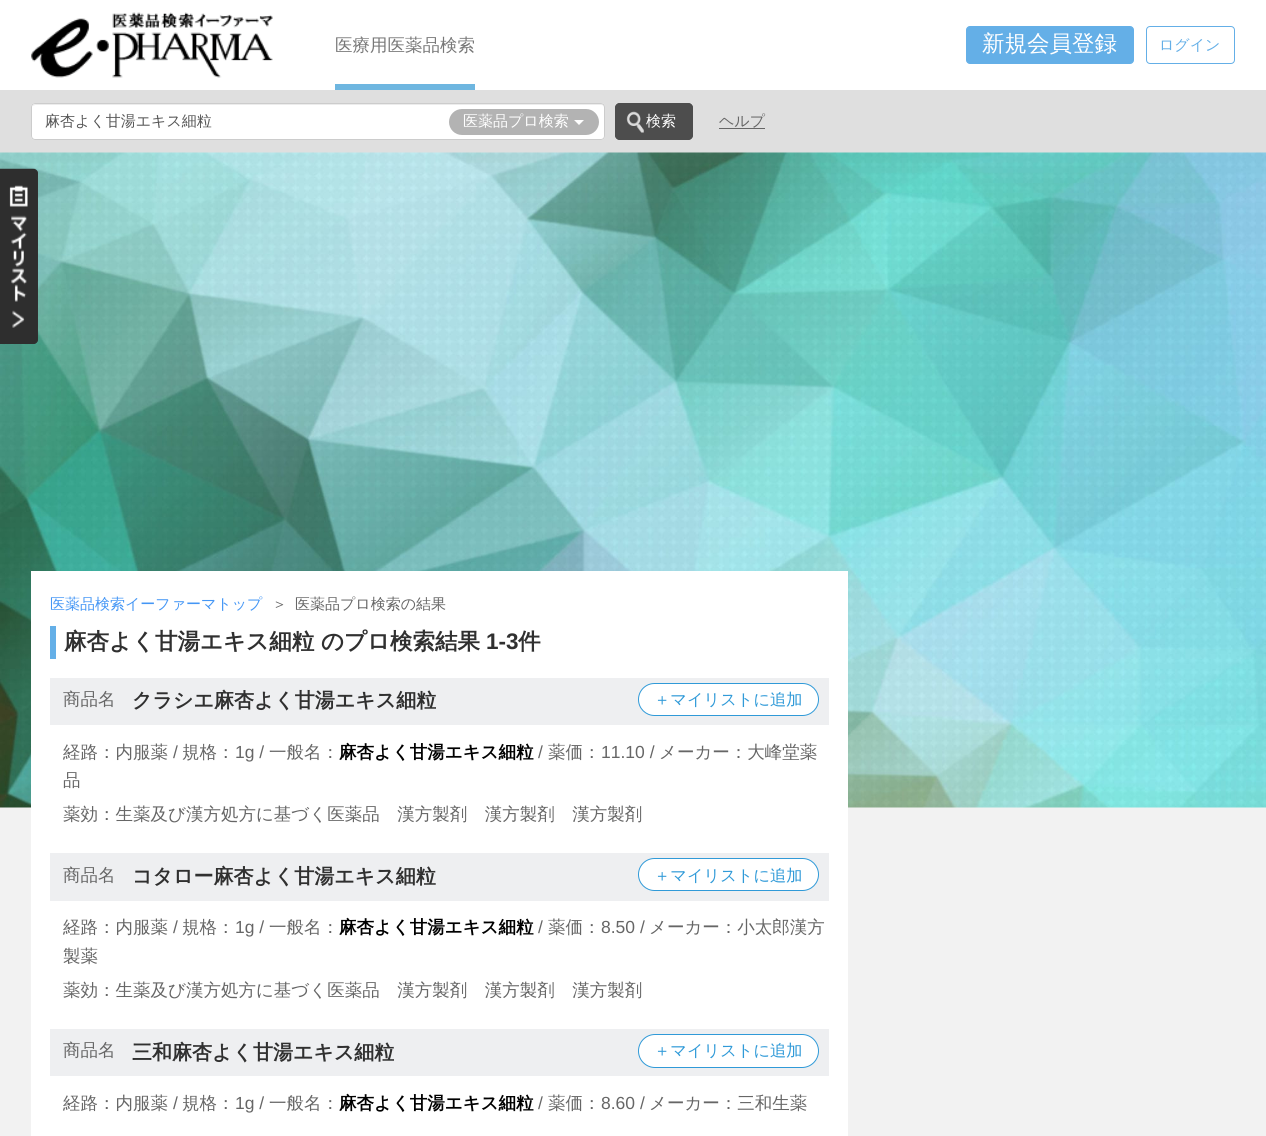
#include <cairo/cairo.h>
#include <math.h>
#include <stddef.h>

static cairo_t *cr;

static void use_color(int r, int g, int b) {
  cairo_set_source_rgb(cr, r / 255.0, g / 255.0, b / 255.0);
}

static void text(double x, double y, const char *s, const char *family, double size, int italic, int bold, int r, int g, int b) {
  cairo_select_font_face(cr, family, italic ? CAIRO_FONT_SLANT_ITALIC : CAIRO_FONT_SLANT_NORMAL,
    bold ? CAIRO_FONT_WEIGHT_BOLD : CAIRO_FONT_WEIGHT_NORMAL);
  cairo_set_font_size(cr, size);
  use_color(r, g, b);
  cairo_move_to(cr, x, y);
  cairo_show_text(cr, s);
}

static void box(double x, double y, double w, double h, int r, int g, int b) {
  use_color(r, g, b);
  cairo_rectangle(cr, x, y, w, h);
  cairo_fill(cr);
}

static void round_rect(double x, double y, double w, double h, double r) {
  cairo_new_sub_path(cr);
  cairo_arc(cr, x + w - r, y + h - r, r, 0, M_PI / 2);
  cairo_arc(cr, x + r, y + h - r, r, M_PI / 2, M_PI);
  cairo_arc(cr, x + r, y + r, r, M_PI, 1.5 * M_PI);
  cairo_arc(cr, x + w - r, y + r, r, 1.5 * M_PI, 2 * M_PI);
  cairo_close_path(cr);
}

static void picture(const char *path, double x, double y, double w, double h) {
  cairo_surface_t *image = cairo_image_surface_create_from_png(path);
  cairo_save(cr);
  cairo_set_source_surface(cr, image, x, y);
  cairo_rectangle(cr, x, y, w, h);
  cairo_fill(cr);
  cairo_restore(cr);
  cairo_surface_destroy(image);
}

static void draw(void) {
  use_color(255, 255, 255);
  cairo_paint(cr);
  box(0, 90, 1266, 63, 223, 223, 223);
  box(0, 807, 1266, 329, 242, 242, 242);
  picture("img_04.png", 0, 152, 1266, 656);
  use_color(50, 50, 50);
  cairo_new_path(cr);
  cairo_move_to(cr, 0, 169);
  cairo_line_to(cr, 34, 169);
  cairo_curve_to(cr, 36, 169, 38, 171, 38, 173);
  cairo_line_to(cr, 38, 340);
  cairo_curve_to(cr, 38, 342, 36, 344, 34, 344);
  cairo_line_to(cr, 0, 344);
  cairo_close_path(cr);
  cairo_fill(cr);
  picture("img_01.png", 0, 168, 38, 176);
  picture("img_02.png", 31, 12, 242, 66);
  box(335, 84, 140, 6, 110, 182, 224);
  use_color(100, 175, 231);
  round_rect(966.5, 26.5, 167, 37, 3.5);
  cairo_fill_preserve(cr);
  cairo_set_line_width(cr, 1);
  cairo_stroke(cr);
  round_rect(1146.5, 26.5, 88, 37, 3.5);
  cairo_stroke(cr);
  use_color(255, 255, 255);
  round_rect(31, 103, 574, 37, 4);
  cairo_fill(cr);
  use_color(236, 236, 236);
  cairo_new_path(cr);
  cairo_move_to(cr, 35, 105);
  cairo_line_to(cr, 601, 105);
  cairo_curve_to(cr, 603, 105, 604, 106, 604, 108);
  cairo_line_to(cr, 604, 106);
  cairo_curve_to(cr, 604, 105, 603, 104, 602, 104);
  cairo_line_to(cr, 36, 104);
  cairo_curve_to(cr, 34, 104, 33, 105, 33, 106);
  cairo_close_path(cr);
  cairo_fill(cr);
  round_rect(31.5, 103.5, 573, 36, 3.5);
  use_color(204, 204, 204);
  cairo_stroke(cr);
  use_color(179, 179, 179);
  round_rect(449, 109, 150, 26, 13);
  cairo_fill(cr);
  use_color(255, 255, 255);
  cairo_new_path(cr);
  cairo_move_to(cr, 574, 120);
  cairo_line_to(cr, 584, 120);
  cairo_line_to(cr, 579, 125);
  cairo_close_path(cr);
  cairo_fill(cr);
  use_color(77, 77, 77);
  round_rect(615, 103, 78, 37, 5);
  cairo_fill(cr);
  picture("img_03.png", 626, 111, 18, 22);
  round_rect(615.5, 103.5, 77, 36, 4.5);
  cairo_stroke(cr);
  box(719, 128, 46, 1, 102, 102, 102);
  box(31, 571, 817, 565, 255, 255, 255);
  box(50, 626, 6, 33, 100, 175, 231);
  box(50, 678, 779, 47, 238, 239, 241);
  use_color(255, 255, 255);
  round_rect(638.5, 683.5, 180, 32, 16);
  cairo_fill_preserve(cr);
  use_color(48, 154, 216);
  cairo_stroke(cr);
  box(50, 853, 779, 48, 238, 239, 241);
  use_color(255, 255, 255);
  round_rect(638.5, 858.5, 180, 32, 16);
  cairo_fill_preserve(cr);
  use_color(48, 154, 216);
  cairo_stroke(cr);
  box(50, 1029, 779, 47, 238, 239, 241);
  use_color(255, 255, 255);
  round_rect(638.5, 1034.5, 180, 33, 16.5);
  cairo_fill_preserve(cr);
  use_color(48, 154, 216);
  cairo_stroke(cr);
  text(335, 51, "医療用医薬品検索", "WenQuanYi Zen Hei Medium", 17.5, 0, 0, 119, 119, 119);
  text(982, 51, "新規会員登録", "WenQuanYi Zen Hei Medium", 22.5, 0, 0, 255, 255, 255);
  text(1159, 50, "ログイン", "WenQuanYi Zen Hei Medium", 15, 0, 0, 100, 175, 231);
  text(45, 126, "麻杏よく甘湯エキス細粒", "WenQuanYi Zen Hei Medium", 15, 0, 0, 85, 85, 85);
  text(463, 126, "医薬品プロ検索", "WenQuanYi Zen Hei Medium", 15, 0, 0, 255, 255, 255);
  text(646, 126, "検索", "WenQuanYi Zen Hei Medium", 15, 0, 0, 255, 255, 255);
  text(719, 126, "ヘルプ", "WenQuanYi Zen Hei Medium", 15, 0, 0, 102, 102, 102);
  text(50, 609, "医薬品検索イーファーマトップ", "WenQuanYi Zen Hei Medium", 15, 0, 0, 68, 150, 245);
  text(272, 609, "＞", "WenQuanYi Zen Hei Medium", 15, 0, 0, 102, 102, 102);
  text(295, 609, "医薬品プロ検索の結果", "WenQuanYi Zen Hei Medium", 15, 0, 0, 102, 102, 102);
  text(64, 649, "麻杏よく甘湯エキス細粒 のプロ検索結果", "WenQuanYi Zen Hei", 22.5, 0, 1, 48, 48, 48);
  text(486, 649, "1-3", "Liberation Sans", 22.5, 0, 1, 48, 48, 48);
  text(518, 649, "件", "WenQuanYi Zen Hei", 22.5, 0, 1, 48, 48, 48);
  text(63, 705, "商品名", "WenQuanYi Zen Hei Medium", 17.5, 0, 0, 102, 102, 102);
  text(132, 707, "クラシエ麻杏よく甘湯エキス細粒", "WenQuanYi Zen Hei", 20, 0, 1, 48, 48, 48);
  text(654, 705, "＋マイリストに追加", "WenQuanYi Zen Hei Medium", 16.25, 0, 0, 48, 154, 216);
  text(63, 758, "経路：内服薬", "WenQuanYi Zen Hei Medium", 17.5, 0, 0, 102, 102, 102);
  text(173, 758, "/", "Liberation Sans", 17.5, 0, 0, 102, 102, 102);
  text(182, 758, "規格：", "WenQuanYi Zen Hei Medium", 17.5, 0, 0, 102, 102, 102);
  text(235, 758, "1g /", "Liberation Sans", 17.5, 0, 0, 102, 102, 102);
  text(269, 758, "一般名：", "WenQuanYi Zen Hei Medium", 17.5, 0, 0, 102, 102, 102);
  text(339, 758, "麻杏よく甘湯エキス細粒", "WenQuanYi Zen Hei", 17.5, 0, 1, 0, 0, 0);
  text(538, 758, "/", "Liberation Sans", 17.5, 0, 0, 102, 102, 102);
  text(548, 758, "薬価：", "WenQuanYi Zen Hei Medium", 17.5, 0, 0, 102, 102, 102);
  text(601, 758, "11.10 /", "Liberation Sans", 17.5, 0, 0, 102, 102, 102);
  text(659, 758, "メーカー：大峰堂薬", "WenQuanYi Zen Hei Medium", 17.5, 0, 0, 102, 102, 102);
  text(63, 786, "品", "WenQuanYi Zen Hei Medium", 17.5, 0, 0, 102, 102, 102);
  text(63, 820, "薬効：生薬及び漢方処方に基づく医薬品　漢方製剤　漢方製剤　漢方製剤", "WenQuanYi Zen Hei Medium", 17.5, 0, 0, 102, 102, 102);
  text(63, 881, "商品名", "WenQuanYi Zen Hei Medium", 17.5, 0, 0, 102, 102, 102);
  text(132, 883, "コタロー麻杏よく甘湯エキス細粒", "WenQuanYi Zen Hei", 20, 0, 1, 48, 48, 48);
  text(654, 881, "＋マイリストに追加", "WenQuanYi Zen Hei Medium", 16.25, 0, 0, 48, 154, 216);
  text(63, 933, "経路：内服薬", "WenQuanYi Zen Hei Medium", 17.5, 0, 0, 102, 102, 102);
  text(173, 933, "/", "Liberation Sans", 17.5, 0, 0, 102, 102, 102);
  text(182, 933, "規格：", "WenQuanYi Zen Hei Medium", 17.5, 0, 0, 102, 102, 102);
  text(235, 933, "1g /", "Liberation Sans", 17.5, 0, 0, 102, 102, 102);
  text(269, 933, "一般名：", "WenQuanYi Zen Hei Medium", 17.5, 0, 0, 102, 102, 102);
  text(339, 933, "麻杏よく甘湯エキス細粒", "WenQuanYi Zen Hei", 17.5, 0, 1, 0, 0, 0);
  text(538, 933, "/", "Liberation Sans", 17.5, 0, 0, 102, 102, 102);
  text(548, 933, "薬価：", "WenQuanYi Zen Hei Medium", 17.5, 0, 0, 102, 102, 102);
  text(601, 933, "8.50 /", "Liberation Sans", 17.5, 0, 0, 102, 102, 102);
  text(649, 933, "メーカー：小太郎漢方", "WenQuanYi Zen Hei Medium", 17.5, 0, 0, 102, 102, 102);
  text(63, 962, "製薬", "WenQuanYi Zen Hei Medium", 17.5, 0, 0, 102, 102, 102);
  text(63, 996, "薬効：生薬及び漢方処方に基づく医薬品　漢方製剤　漢方製剤　漢方製剤", "WenQuanYi Zen Hei Medium", 17.5, 0, 0, 102, 102, 102);
  text(63, 1056, "商品名", "WenQuanYi Zen Hei Medium", 17.5, 0, 0, 102, 102, 102);
  text(132, 1059, "三和麻杏よく甘湯エキス細粒", "WenQuanYi Zen Hei", 20, 0, 1, 48, 48, 48);
  text(654, 1056, "＋マイリストに追加", "WenQuanYi Zen Hei Medium", 16.25, 0, 0, 48, 154, 216);
  text(63, 1109, "経路：内服薬", "WenQuanYi Zen Hei Medium", 17.5, 0, 0, 102, 102, 102);
  text(173, 1109, "/", "Liberation Sans", 17.5, 0, 0, 102, 102, 102);
  text(182, 1109, "規格：", "WenQuanYi Zen Hei Medium", 17.5, 0, 0, 102, 102, 102);
  text(235, 1109, "1g /", "Liberation Sans", 17.5, 0, 0, 102, 102, 102);
  text(269, 1109, "一般名：", "WenQuanYi Zen Hei Medium", 17.5, 0, 0, 102, 102, 102);
  text(339, 1109, "麻杏よく甘湯エキス細粒", "WenQuanYi Zen Hei", 17.5, 0, 1, 0, 0, 0);
  text(538, 1109, "/", "Liberation Sans", 17.5, 0, 0, 102, 102, 102);
  text(548, 1109, "薬価：", "WenQuanYi Zen Hei Medium", 17.5, 0, 0, 102, 102, 102);
  text(601, 1109, "8.60 /", "Liberation Sans", 17.5, 0, 0, 102, 102, 102);
  text(649, 1109, "メーカー：三和生薬", "WenQuanYi Zen Hei Medium", 17.5, 0, 0, 102, 102, 102);
}

int main(void) {
  cairo_surface_t *surface = cairo_image_surface_create(CAIRO_FORMAT_RGB24, 1266, 1136);
  cr = cairo_create(surface);
  cairo_font_options_t *options = cairo_font_options_create();
  cairo_font_options_set_hint_metrics(options, CAIRO_HINT_METRICS_OFF);
  cairo_font_options_set_hint_style(options, CAIRO_HINT_STYLE_NONE);
  cairo_set_font_options(cr, options);
  cairo_set_miter_limit(cr, 4);
  draw();
  cairo_surface_write_to_png(surface, "out.png");
  cairo_font_options_destroy(options);
  cairo_destroy(cr);
  cairo_surface_destroy(surface);
  return 0;
}
